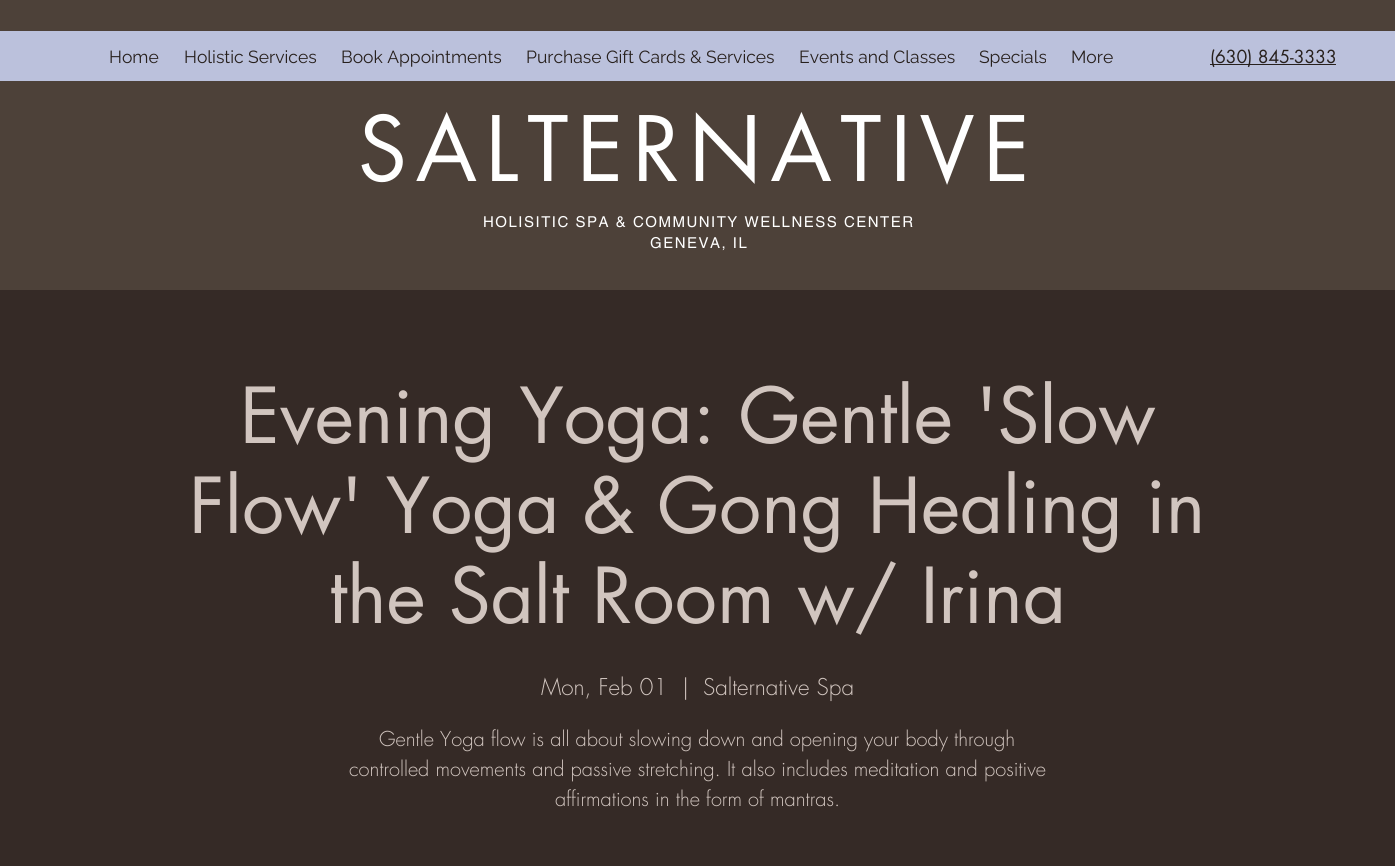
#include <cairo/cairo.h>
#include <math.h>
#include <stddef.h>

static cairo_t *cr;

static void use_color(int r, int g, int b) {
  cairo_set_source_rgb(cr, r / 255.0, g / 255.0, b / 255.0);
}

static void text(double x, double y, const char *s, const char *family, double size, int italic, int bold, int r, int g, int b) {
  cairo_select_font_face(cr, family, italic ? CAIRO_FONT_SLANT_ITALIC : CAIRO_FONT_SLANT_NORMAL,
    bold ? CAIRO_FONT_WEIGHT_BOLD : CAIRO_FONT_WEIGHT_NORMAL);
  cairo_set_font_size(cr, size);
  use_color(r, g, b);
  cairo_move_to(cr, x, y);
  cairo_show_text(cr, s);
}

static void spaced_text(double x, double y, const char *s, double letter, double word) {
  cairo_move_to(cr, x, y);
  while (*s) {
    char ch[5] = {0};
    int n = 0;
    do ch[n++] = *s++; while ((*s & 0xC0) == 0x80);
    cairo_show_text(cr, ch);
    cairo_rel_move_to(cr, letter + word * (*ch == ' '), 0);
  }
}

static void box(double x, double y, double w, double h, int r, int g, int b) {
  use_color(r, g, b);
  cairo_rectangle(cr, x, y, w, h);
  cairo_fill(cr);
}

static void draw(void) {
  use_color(53, 42, 38);
  cairo_paint(cr);
  box(0, 0, 1395, 290, 77, 65, 57);
  box(0, 31, 1395, 50, 187, 193, 220);
  box(1210, 64, 126, 1, 39, 32, 29);
  text(109, 63, "Home", "Raleway", 17.5, 0, 0, 39, 32, 29);
  text(184, 63, "Holistic Services", "Raleway", 17.5, 0, 0, 39, 32, 29);
  text(341, 63, "Book Appointments", "Raleway", 17.5, 0, 0, 39, 32, 29);
  text(526, 63, "Purchase Gift Cards & Services", "Raleway", 17.5, 0, 0, 39, 32, 29);
  text(799, 63, "Events and Classes", "Raleway", 17.5, 0, 0, 39, 32, 29);
  text(979, 63, "Specials", "Raleway", 17.5, 0, 0, 39, 32, 29);
  text(1071, 63, "More", "Raleway", 17.5, 0, 0, 39, 32, 29);
  text(1210, 63, "(630) 845-3333", "futura", 17.5, 0, 0, 39, 32, 29);
  cairo_set_font_size(cr, 87.5);
  use_color(255, 255, 255);
  spaced_text(358, 181, "SALTERNATIVE", 8.75, 0);
  cairo_select_font_face(cr, "helvetica", CAIRO_FONT_SLANT_NORMAL, CAIRO_FONT_WEIGHT_NORMAL);
  cairo_set_font_size(cr, 15);
  spaced_text(483, 227, "HOLISITIC SPA & COMMUNITY WELLNESS CENTER", 1.5, 0);
  spaced_text(650, 248, "GENEVA, IL", 1.5, 0);
  text(240, 443, "Evening Yoga: Gentle 'Slow", "futura", 75, 0, 0, 209, 197, 191);
  text(189, 533, "Flow' Yoga & Gong Healing in", "futura", 75, 0, 0, 209, 197, 191);
  text(329, 623, "the Salt Room w/ Irina", "futura", 75, 0, 0, 209, 197, 191);
  text(541, 695, "Mon, Feb 01", "futura Light", 22.5, 0, 0, 209, 197, 191);
  text(682, 695, "|", "futura Light", 22.5, 0, 0, 209, 197, 191);
  text(703, 695, "Salternative Spa", "futura Light", 22.5, 0, 0, 209, 197, 191);
  text(379, 746, "Gentle Yoga flow is all about slowing down and opening your body through", "futura Light", 20, 0, 0, 209, 197, 191);
  text(349, 776, "controlled movements and passive stretching. It also includes meditation and positive", "futura Light", 20, 0, 0, 209, 197, 191);
  text(555, 806, "affirmations in the form of mantras.", "futura Light", 20, 0, 0, 209, 197, 191);
}

int main(void) {
  cairo_surface_t *surface = cairo_image_surface_create(CAIRO_FORMAT_RGB24, 1395, 866);
  cr = cairo_create(surface);
  cairo_font_options_t *options = cairo_font_options_create();
  cairo_font_options_set_hint_metrics(options, CAIRO_HINT_METRICS_OFF);
  cairo_font_options_set_hint_style(options, CAIRO_HINT_STYLE_NONE);
  cairo_set_font_options(cr, options);
  cairo_set_miter_limit(cr, 4);
  draw();
  cairo_surface_write_to_png(surface, "out.png");
  cairo_font_options_destroy(options);
  cairo_destroy(cr);
  cairo_surface_destroy(surface);
  return 0;
}
